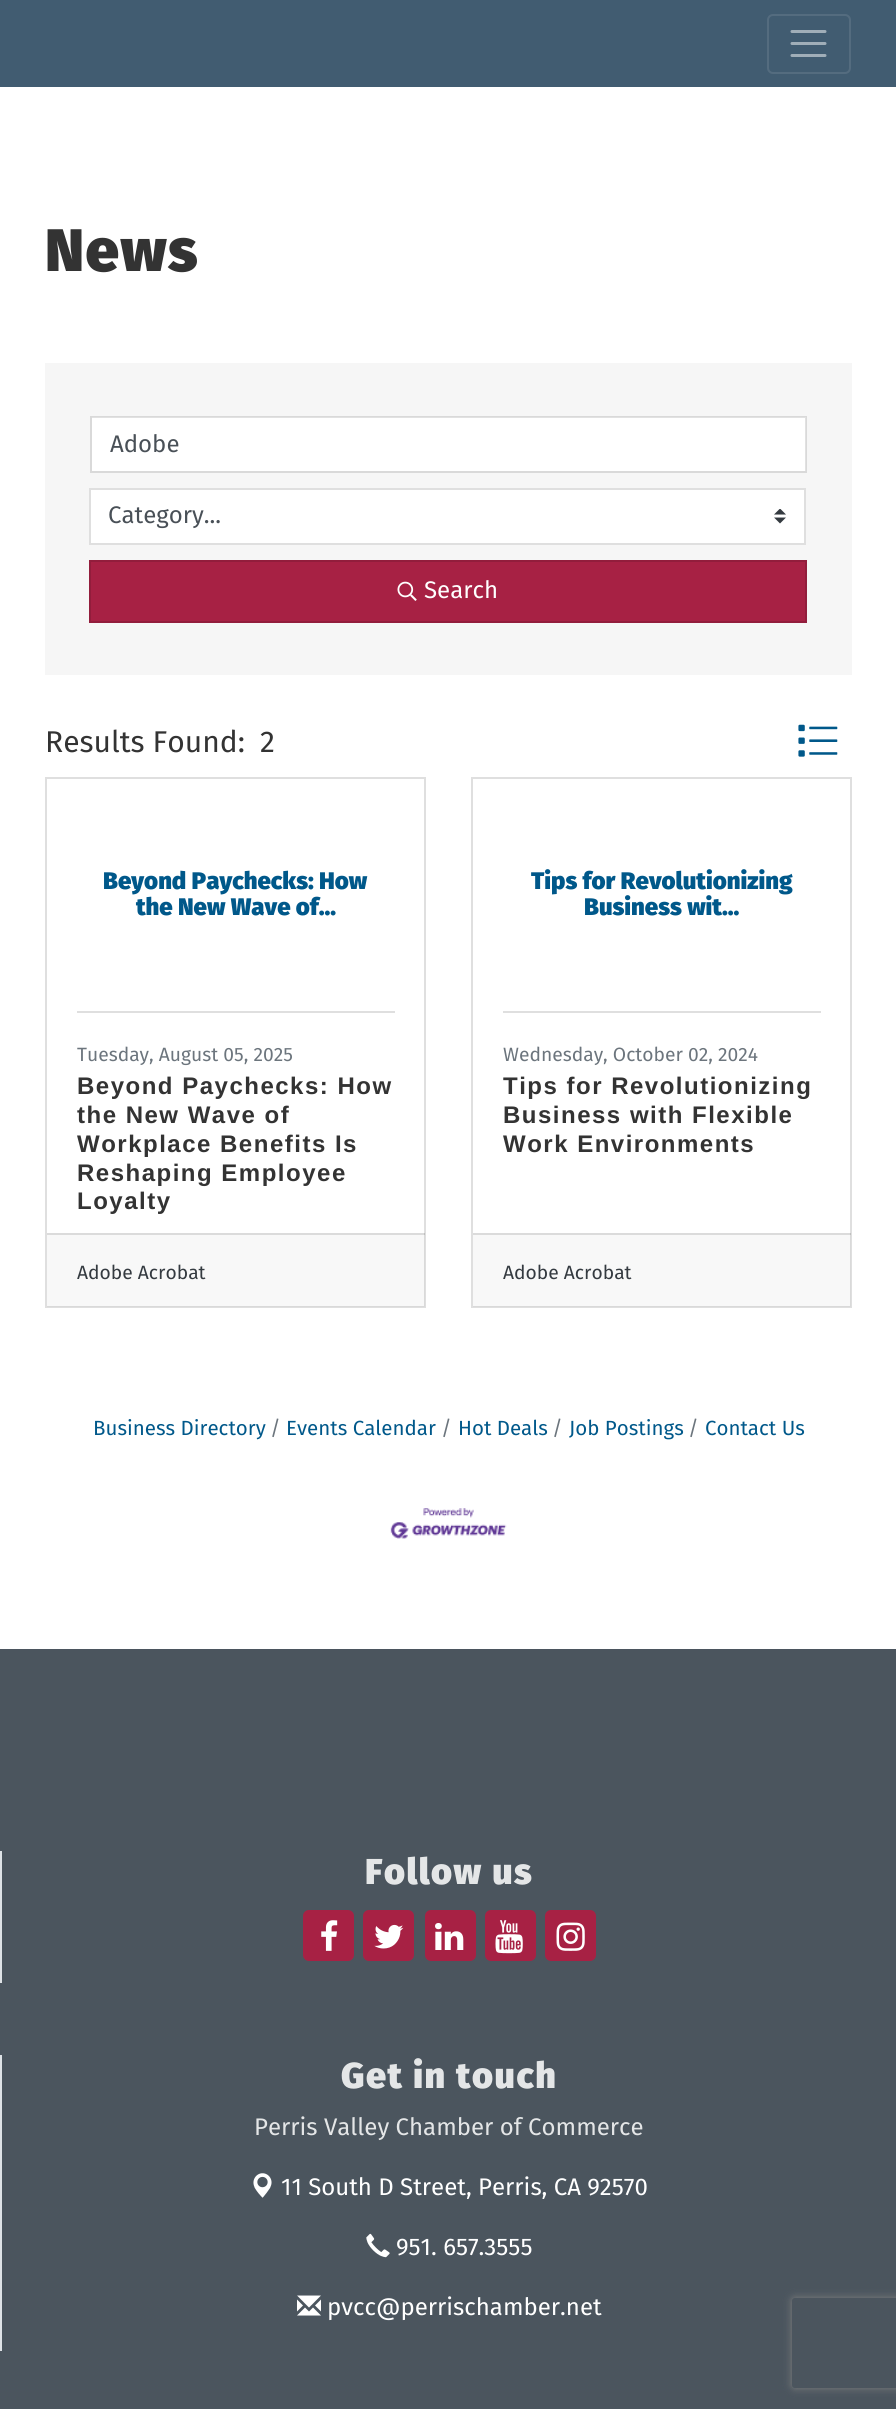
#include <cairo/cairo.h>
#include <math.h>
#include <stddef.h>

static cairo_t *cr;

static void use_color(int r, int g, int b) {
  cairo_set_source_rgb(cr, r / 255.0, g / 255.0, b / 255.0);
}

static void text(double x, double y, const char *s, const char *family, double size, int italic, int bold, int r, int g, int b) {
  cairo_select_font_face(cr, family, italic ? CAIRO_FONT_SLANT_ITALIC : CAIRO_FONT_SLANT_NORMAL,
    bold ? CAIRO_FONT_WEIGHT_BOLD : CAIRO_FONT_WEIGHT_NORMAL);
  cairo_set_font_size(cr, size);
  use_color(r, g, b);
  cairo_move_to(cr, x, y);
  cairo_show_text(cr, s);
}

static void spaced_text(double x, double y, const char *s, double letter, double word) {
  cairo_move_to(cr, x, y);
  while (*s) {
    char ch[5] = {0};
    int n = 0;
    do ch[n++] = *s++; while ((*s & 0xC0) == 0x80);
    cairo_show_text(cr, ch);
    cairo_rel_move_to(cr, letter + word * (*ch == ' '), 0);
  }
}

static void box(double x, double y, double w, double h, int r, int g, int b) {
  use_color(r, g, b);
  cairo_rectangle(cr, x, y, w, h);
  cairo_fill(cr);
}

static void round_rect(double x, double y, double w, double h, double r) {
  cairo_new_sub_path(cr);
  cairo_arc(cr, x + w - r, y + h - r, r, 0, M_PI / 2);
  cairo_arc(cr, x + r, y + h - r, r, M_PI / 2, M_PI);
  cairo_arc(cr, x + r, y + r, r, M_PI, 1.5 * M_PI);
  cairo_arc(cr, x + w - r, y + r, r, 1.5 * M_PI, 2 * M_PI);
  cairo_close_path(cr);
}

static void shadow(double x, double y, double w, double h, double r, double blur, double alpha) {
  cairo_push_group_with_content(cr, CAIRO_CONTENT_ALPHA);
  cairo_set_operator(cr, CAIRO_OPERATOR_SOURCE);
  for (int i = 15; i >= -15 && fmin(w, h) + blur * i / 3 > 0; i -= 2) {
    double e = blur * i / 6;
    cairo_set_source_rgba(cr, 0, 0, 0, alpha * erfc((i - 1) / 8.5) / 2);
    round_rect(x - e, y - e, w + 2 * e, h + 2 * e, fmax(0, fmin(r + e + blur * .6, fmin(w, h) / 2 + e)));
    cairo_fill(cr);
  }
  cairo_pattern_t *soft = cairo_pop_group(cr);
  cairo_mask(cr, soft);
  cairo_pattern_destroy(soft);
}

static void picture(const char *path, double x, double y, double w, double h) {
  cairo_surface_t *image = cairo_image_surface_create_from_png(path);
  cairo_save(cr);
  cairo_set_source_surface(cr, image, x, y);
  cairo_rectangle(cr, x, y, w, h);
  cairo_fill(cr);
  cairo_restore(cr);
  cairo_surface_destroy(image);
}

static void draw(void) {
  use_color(255, 255, 255);
  cairo_paint(cr);
  box(0, 0, 896, 87, 65, 92, 113);
  round_rect(768, 15, 82, 58, 5);
  use_color(84, 108, 127);
  cairo_stroke(cr);
  cairo_new_path(cr);
  cairo_move_to(cr, 792, 31.5);
  cairo_line_to(cr, 825, 31.5);
  cairo_move_to(cr, 792, 43.5);
  cairo_line_to(cr, 825, 43.5);
  cairo_move_to(cr, 792, 55.5);
  cairo_line_to(cr, 825, 55.5);
  use_color(160, 174, 184);
  cairo_set_line_width(cr, 3);
  cairo_set_line_cap(cr, CAIRO_LINE_CAP_ROUND);
  cairo_stroke(cr);
  box(45, 363, 807, 312, 246, 246, 246);
  box(92, 417, 714, 54, 255, 255, 255);
  cairo_rectangle(cr, 91, 417, 715, 55);
  cairo_set_source_rgba(cr, 0, 0, 0, 0.12);
  cairo_set_line_width(cr, 2);
  cairo_set_line_cap(cr, CAIRO_LINE_CAP_BUTT);
  cairo_stroke(cr);
  box(91, 490, 713, 53, 255, 255, 255);
  picture("img_01.png", 774, 509, 12, 15);
  cairo_rectangle(cr, 90, 489, 715, 55);
  use_color(223, 223, 223);
  cairo_stroke(cr);
  use_color(167, 33, 68);
  cairo_rectangle(cr, 90, 561, 716, 61);
  cairo_fill_preserve(cr);
  use_color(146, 29, 60);
  cairo_stroke(cr);
  picture("img_02.png", 397, 581, 20, 20);
  picture("img_03.png", 798, 724, 40, 33);
  cairo_rectangle(cr, 46, 778, 379, 529);
  use_color(223, 223, 223);
  cairo_stroke(cr);
  box(77, 1011, 318, 2, 223, 223, 223);
  cairo_set_source_rgba(cr, 0, 0, 0, 0.03);
  cairo_rectangle(cr, 47, 1233, 378, 74);
  cairo_fill(cr);
  cairo_set_source_rgba(cr, 0, 0, 0, 0.12);
  cairo_rectangle(cr, 47, 1233, 378, 2);
  cairo_fill(cr);
  cairo_rectangle(cr, 472, 778, 379, 529);
  use_color(223, 223, 223);
  cairo_stroke(cr);
  box(503, 1011, 318, 2, 223, 223, 223);
  cairo_set_source_rgba(cr, 0, 0, 0, 0.03);
  cairo_rectangle(cr, 473, 1233, 378, 74);
  cairo_fill(cr);
  cairo_set_source_rgba(cr, 0, 0, 0, 0.12);
  cairo_rectangle(cr, 473, 1233, 378, 2);
  cairo_fill(cr);
  picture("img_04.png", 390, 1508, 117, 31);
  box(0, 1649, 896, 760, 75, 85, 94);
  box(0, 1851, 2, 132, 222, 226, 230);
  use_color(167, 33, 68);
  round_rect(304, 1911, 49, 49, 5);
  cairo_fill_preserve(cr);
  cairo_stroke(cr);
  picture("img_05.png", 321, 1920, 17, 31);
  round_rect(364, 1911, 49, 49, 5);
  cairo_fill_preserve(cr);
  cairo_stroke(cr);
  picture("img_06.png", 374, 1924, 30, 25);
  round_rect(426, 1911, 49, 49, 5);
  cairo_fill_preserve(cr);
  cairo_stroke(cr);
  picture("img_07.png", 435, 1923, 29, 27);
  round_rect(486, 1911, 49, 49, 5);
  cairo_fill_preserve(cr);
  cairo_stroke(cr);
  picture("img_08.png", 495, 1920, 28, 34);
  round_rect(546, 1911, 49, 49, 5);
  cairo_fill_preserve(cr);
  cairo_stroke(cr);
  picture("img_09.png", 556, 1922, 29, 29);
  box(0, 2055, 2, 296, 222, 226, 230);
  picture("img_10.png", 253, 2173, 19, 25);
  picture("img_11.png", 366, 2233, 24, 25);
  picture("img_12.png", 297, 2295, 24, 21);
  cairo_save(cr);
  cairo_set_fill_rule(cr, CAIRO_FILL_RULE_EVEN_ODD);
  cairo_new_path(cr);
  cairo_move_to(cr, 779, 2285);
  cairo_line_to(cr, 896, 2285);
  cairo_line_to(cr, 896, 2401);
  cairo_line_to(cr, 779, 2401);
  cairo_close_path(cr);
  cairo_move_to(cr, 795, 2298);
  cairo_line_to(cr, 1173, 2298);
  cairo_curve_to(cr, 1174.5, 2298, 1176, 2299.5, 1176, 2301);
  cairo_line_to(cr, 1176, 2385);
  cairo_curve_to(cr, 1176, 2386.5, 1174.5, 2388, 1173, 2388);
  cairo_line_to(cr, 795, 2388);
  cairo_curve_to(cr, 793.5, 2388, 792, 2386.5, 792, 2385);
  cairo_line_to(cr, 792, 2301);
  cairo_curve_to(cr, 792, 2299.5, 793.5, 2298, 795, 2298);
  cairo_close_path(cr);
  cairo_clip(cr);
  use_color(128, 128, 128);
  shadow(792, 2298, 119, 90, 3, 4, 1);
  cairo_restore(cr);
  cairo_select_font_face(cr, "Fira Sans Black", CAIRO_FONT_SLANT_NORMAL, CAIRO_FONT_WEIGHT_NORMAL);
  cairo_set_font_size(cr, 60);
  use_color(51, 51, 51);
  spaced_text(45, 271, "News", 1.5, 0);
  text(110, 452, "Adobe", "Fira Sans", 24, 0, 0, 73, 80, 87);
  text(108, 523, "Category...", "Fira Sans", 24, 0, 0, 73, 80, 87);
  text(424, 598, "Search", "Fira Sans", 24, 0, 0, 255, 255, 255);
  text(45, 752, "Results Found:", "Fira Sans", 30, 0, 0, 51, 51, 51);
  text(260, 752, "2", "Fira Sans", 30, 0, 0, 51, 51, 51);
  text(103, 889, "Beyond Paychecks: How", "Fira Sans Black", 24, 0, 0, 0, 88, 138);
  text(136, 915, "the New Wave of...", "Fira Sans Black", 24, 0, 0, 0, 88, 138);
  text(77, 1061, "Tuesday, August 05, 2025", "Fira Sans", 19.25, 0, 0, 108, 117, 125);
  cairo_select_font_face(cr, "Liberation Sans", CAIRO_FONT_SLANT_NORMAL, CAIRO_FONT_WEIGHT_BOLD);
  cairo_set_font_size(cr, 24);
  use_color(51, 51, 51);
  spaced_text(77, 1094, "Beyond Paychecks: How", 1.5, 0);
  spaced_text(77, 1123, "the New Wave of", 1.5, 0);
  spaced_text(77, 1152, "Workplace Benefits Is", 1.5, 0);
  spaced_text(77, 1181, "Reshaping Employee", 1.5, 0);
  spaced_text(77, 1209, "Loyalty", 1.5, 0);
  text(77, 1279, "Adobe Acrobat", "Fira Sans", 19.25, 0, 0, 52, 58, 64);
  text(531, 889, "Tips for Revolutionizing", "Fira Sans Black", 24, 0, 0, 0, 88, 138);
  text(584, 915, "Business wit...", "Fira Sans Black", 24, 0, 0, 0, 88, 138);
  text(503, 1061, "Wednesday, October 02, 2024", "Fira Sans", 19.25, 0, 0, 108, 117, 125);
  cairo_select_font_face(cr, "Liberation Sans", CAIRO_FONT_SLANT_NORMAL, CAIRO_FONT_WEIGHT_BOLD);
  cairo_set_font_size(cr, 24);
  use_color(51, 51, 51);
  spaced_text(503, 1094, "Tips for Revolutionizing", 1.5, 0);
  spaced_text(503, 1123, "Business with Flexible", 1.5, 0);
  spaced_text(503, 1152, "Work Environments", 1.5, 0);
  text(503, 1279, "Adobe Acrobat", "Fira Sans", 19.25, 0, 0, 52, 58, 64);
  text(93, 1435, "Business Directory", "Fira Sans", 20.5, 0, 0, 0, 88, 138);
  text(270, 1435, "/", "Fira Sans", 20.5, 0, 0, 108, 117, 125);
  text(286, 1435, "Events Calendar", "Fira Sans", 20.5, 0, 0, 0, 88, 138);
  text(441, 1435, "/", "Fira Sans", 20.5, 0, 0, 108, 117, 125);
  text(458, 1435, "Hot Deals", "Fira Sans", 20.5, 0, 0, 0, 88, 138);
  text(552, 1435, "/", "Fira Sans", 20.5, 0, 0, 108, 117, 125);
  text(569, 1435, "Job Postings", "Fira Sans", 20.5, 0, 0, 0, 88, 138);
  text(688, 1435, "/", "Fira Sans", 20.5, 0, 0, 108, 117, 125);
  text(705, 1435, "Contact Us", "Fira Sans", 20.5, 0, 0, 0, 88, 138);
  cairo_select_font_face(cr, "Fira Sans Black", CAIRO_FONT_SLANT_NORMAL, CAIRO_FONT_WEIGHT_NORMAL);
  cairo_set_font_size(cr, 36);
  use_color(228, 230, 231);
  spaced_text(365, 1884, "Follow us", 1.5, 0);
  spaced_text(341, 2088, "Get in touch", 1.5, 0);
  text(254, 2135, "Perris Valley Chamber of Commerce", "Fira Sans", 24, 0, 0, 228, 230, 231);
  text(281, 2195, "11 South D Street, Perris, CA 92570", "Fira Sans", 24, 0, 0, 255, 255, 255);
  text(396, 2255, "951. 657.3555", "Fira Sans", 24, 0, 0, 255, 255, 255);
  text(327, 2315, "pvcc@perrischamber.net", "Fira Sans", 24, 0, 0, 255, 255, 255);
}

int main(void) {
  cairo_surface_t *surface = cairo_image_surface_create(CAIRO_FORMAT_RGB24, 896, 2409);
  cr = cairo_create(surface);
  cairo_font_options_t *options = cairo_font_options_create();
  cairo_font_options_set_hint_metrics(options, CAIRO_HINT_METRICS_OFF);
  cairo_font_options_set_hint_style(options, CAIRO_HINT_STYLE_NONE);
  cairo_set_font_options(cr, options);
  cairo_set_miter_limit(cr, 4);
  draw();
  cairo_surface_write_to_png(surface, "out.png");
  cairo_font_options_destroy(options);
  cairo_destroy(cr);
  cairo_surface_destroy(surface);
  return 0;
}
